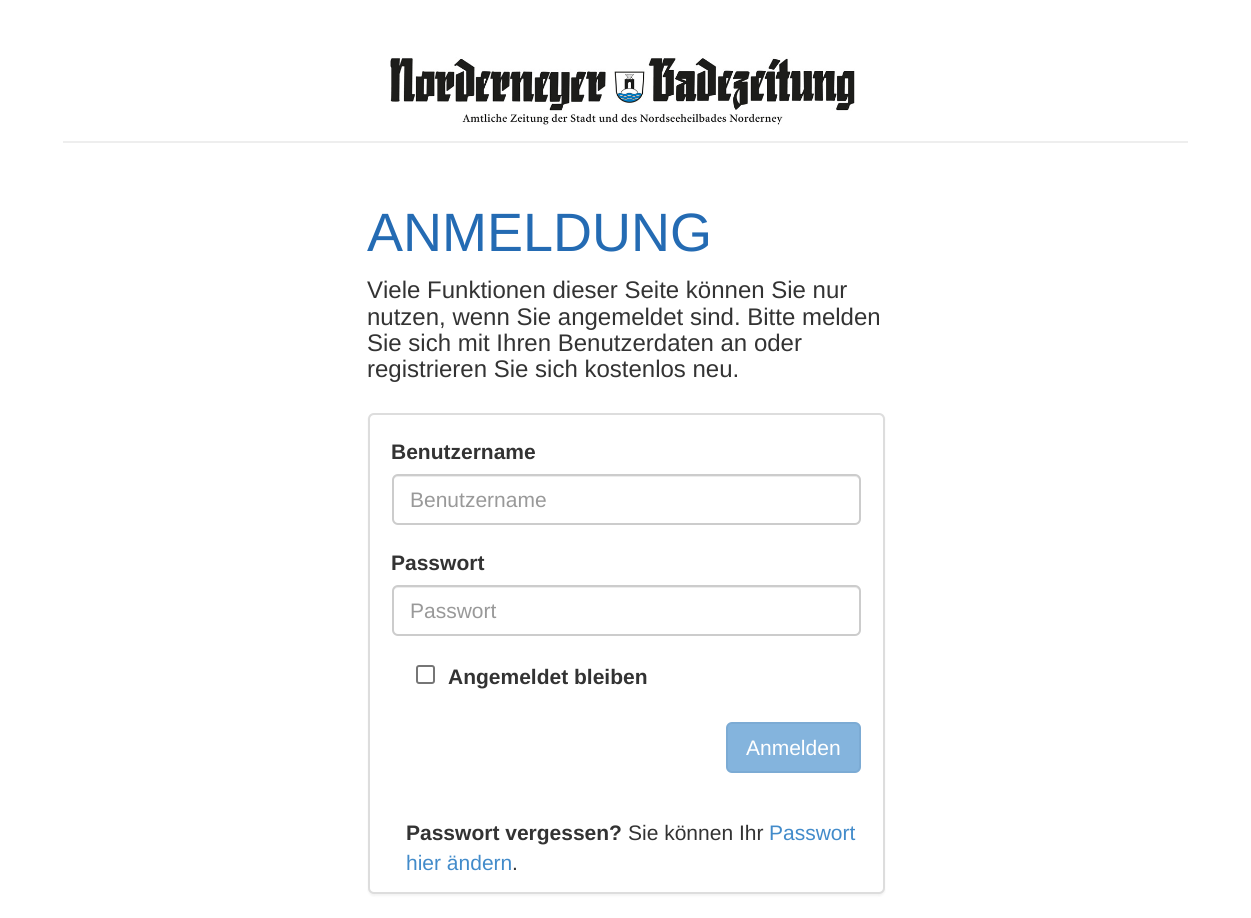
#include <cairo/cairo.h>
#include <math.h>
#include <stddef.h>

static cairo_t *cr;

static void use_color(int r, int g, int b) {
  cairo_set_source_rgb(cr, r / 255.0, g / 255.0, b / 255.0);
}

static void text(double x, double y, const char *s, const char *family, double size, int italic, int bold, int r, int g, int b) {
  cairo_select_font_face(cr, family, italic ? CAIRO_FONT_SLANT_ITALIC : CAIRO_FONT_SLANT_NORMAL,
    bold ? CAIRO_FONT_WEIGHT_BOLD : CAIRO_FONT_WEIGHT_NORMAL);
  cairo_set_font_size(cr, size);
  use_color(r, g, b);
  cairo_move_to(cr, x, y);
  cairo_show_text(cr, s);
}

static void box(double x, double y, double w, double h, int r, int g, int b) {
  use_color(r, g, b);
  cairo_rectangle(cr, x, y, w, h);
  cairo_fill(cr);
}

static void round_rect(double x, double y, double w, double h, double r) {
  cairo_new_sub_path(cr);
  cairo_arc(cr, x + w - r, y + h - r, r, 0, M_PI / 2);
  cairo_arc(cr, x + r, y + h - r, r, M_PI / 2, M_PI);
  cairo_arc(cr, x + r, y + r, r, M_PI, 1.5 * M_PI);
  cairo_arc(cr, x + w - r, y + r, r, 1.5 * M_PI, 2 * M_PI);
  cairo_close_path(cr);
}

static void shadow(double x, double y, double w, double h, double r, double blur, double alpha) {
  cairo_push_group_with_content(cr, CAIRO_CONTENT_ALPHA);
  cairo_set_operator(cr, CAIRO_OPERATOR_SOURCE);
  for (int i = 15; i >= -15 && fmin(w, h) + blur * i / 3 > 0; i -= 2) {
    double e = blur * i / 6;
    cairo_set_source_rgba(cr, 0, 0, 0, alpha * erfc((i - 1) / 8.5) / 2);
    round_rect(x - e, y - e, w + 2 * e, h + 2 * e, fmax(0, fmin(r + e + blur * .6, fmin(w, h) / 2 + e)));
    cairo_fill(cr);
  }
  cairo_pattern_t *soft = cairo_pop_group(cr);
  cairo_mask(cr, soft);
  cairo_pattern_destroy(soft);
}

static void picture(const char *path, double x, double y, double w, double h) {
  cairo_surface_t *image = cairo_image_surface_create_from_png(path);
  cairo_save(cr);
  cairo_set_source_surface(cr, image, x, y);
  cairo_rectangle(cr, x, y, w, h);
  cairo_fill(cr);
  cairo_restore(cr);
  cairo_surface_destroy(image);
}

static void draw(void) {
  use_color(255, 255, 255);
  cairo_paint(cr);
  box(63, 141, 1125, 2, 238, 238, 238);
  picture("img_01.png", 390, 57, 465, 68);
  use_color(0, 0, 0);
  shadow(368, 414, 517, 482, 6, 1, 0.05);
  use_color(255, 255, 255);
  round_rect(369, 414, 515, 479, 5);
  cairo_fill_preserve(cr);
  use_color(221, 221, 221);
  cairo_stroke(cr);
  use_color(236, 236, 236);
  cairo_new_path(cr);
  cairo_move_to(cr, 398, 477);
  cairo_line_to(cr, 855, 477);
  cairo_curve_to(cr, 857, 477, 860, 479, 860, 482);
  cairo_curve_to(cr, 860, 479, 858, 476, 855, 476);
  cairo_line_to(cr, 398, 476);
  cairo_curve_to(cr, 395, 476, 393, 479, 393, 482);
  cairo_curve_to(cr, 393, 479, 395, 477, 398, 477);
  cairo_close_path(cr);
  cairo_fill(cr);
  round_rect(393, 475, 467, 49, 5);
  use_color(204, 204, 204);
  cairo_stroke(cr);
  use_color(236, 236, 236);
  cairo_new_path(cr);
  cairo_move_to(cr, 398, 588);
  cairo_line_to(cr, 855, 588);
  cairo_curve_to(cr, 857, 588, 860, 590, 860, 592);
  cairo_curve_to(cr, 860, 589, 858, 587, 855, 587);
  cairo_line_to(cr, 398, 587);
  cairo_curve_to(cr, 395, 587, 393, 589, 393, 592);
  cairo_curve_to(cr, 393, 590, 395, 588, 398, 588);
  cairo_close_path(cr);
  cairo_fill(cr);
  round_rect(393, 586, 467, 49, 5);
  use_color(204, 204, 204);
  cairo_stroke(cr);
  round_rect(417, 666, 17, 17, 2);
  use_color(118, 118, 118);
  cairo_stroke(cr);
  use_color(132, 180, 221);
  round_rect(727, 723, 133, 49, 5);
  cairo_fill_preserve(cr);
  use_color(124, 171, 212);
  cairo_stroke(cr);
  text(367, 251, "ANMELDUNG", "Liberation Sans", 54, 0, 0, 36, 107, 179);
  text(367, 298, "Viele Funktionen dieser Seite können Sie nur", "Liberation Sans", 24, 0, 0, 51, 51, 51);
  text(367, 325, "nutzen, wenn Sie angemeldet sind. Bitte melden", "Liberation Sans", 24, 0, 0, 51, 51, 51);
  text(367, 351, "Sie sich mit Ihren Benutzerdaten an oder", "Liberation Sans", 24, 0, 0, 51, 51, 51);
  text(367, 377, "registrieren Sie sich kostenlos neu.", "Liberation Sans", 24, 0, 0, 51, 51, 51);
  text(391, 459, "Benutzername", "Liberation Sans", 21, 0, 1, 51, 51, 51);
  text(410, 507, "Benutzername", "Liberation Sans", 21, 0, 0, 153, 153, 153);
  text(391, 570, "Passwort", "Liberation Sans", 21, 0, 1, 51, 51, 51);
  text(410, 618, "Passwort", "Liberation Sans", 21, 0, 0, 153, 153, 153);
  text(448, 684, "Angemeldet bleiben", "Liberation Sans", 21, 0, 1, 51, 51, 51);
  text(746, 755, "Anmelden", "Liberation Sans", 21, 0, 0, 255, 255, 255);
  text(406, 840, "Passwort vergessen?", "Liberation Sans", 21, 0, 1, 51, 51, 51);
  text(628, 840, "Sie können Ihr", "Liberation Sans", 21, 0, 0, 51, 51, 51);
  text(769, 840, "Passwort", "Liberation Sans", 21, 0, 0, 66, 139, 202);
  text(406, 870, "hier ändern", "Liberation Sans", 21, 0, 0, 66, 139, 202);
  text(512, 870, ".", "Liberation Sans", 21, 0, 0, 51, 51, 51);
}

int main(void) {
  cairo_surface_t *surface = cairo_image_surface_create(CAIRO_FORMAT_RGB24, 1251, 918);
  cr = cairo_create(surface);
  cairo_font_options_t *options = cairo_font_options_create();
  cairo_font_options_set_hint_metrics(options, CAIRO_HINT_METRICS_OFF);
  cairo_font_options_set_hint_style(options, CAIRO_HINT_STYLE_NONE);
  cairo_set_font_options(cr, options);
  cairo_set_miter_limit(cr, 4);
  draw();
  cairo_surface_write_to_png(surface, "out.png");
  cairo_font_options_destroy(options);
  cairo_destroy(cr);
  cairo_surface_destroy(surface);
  return 0;
}
